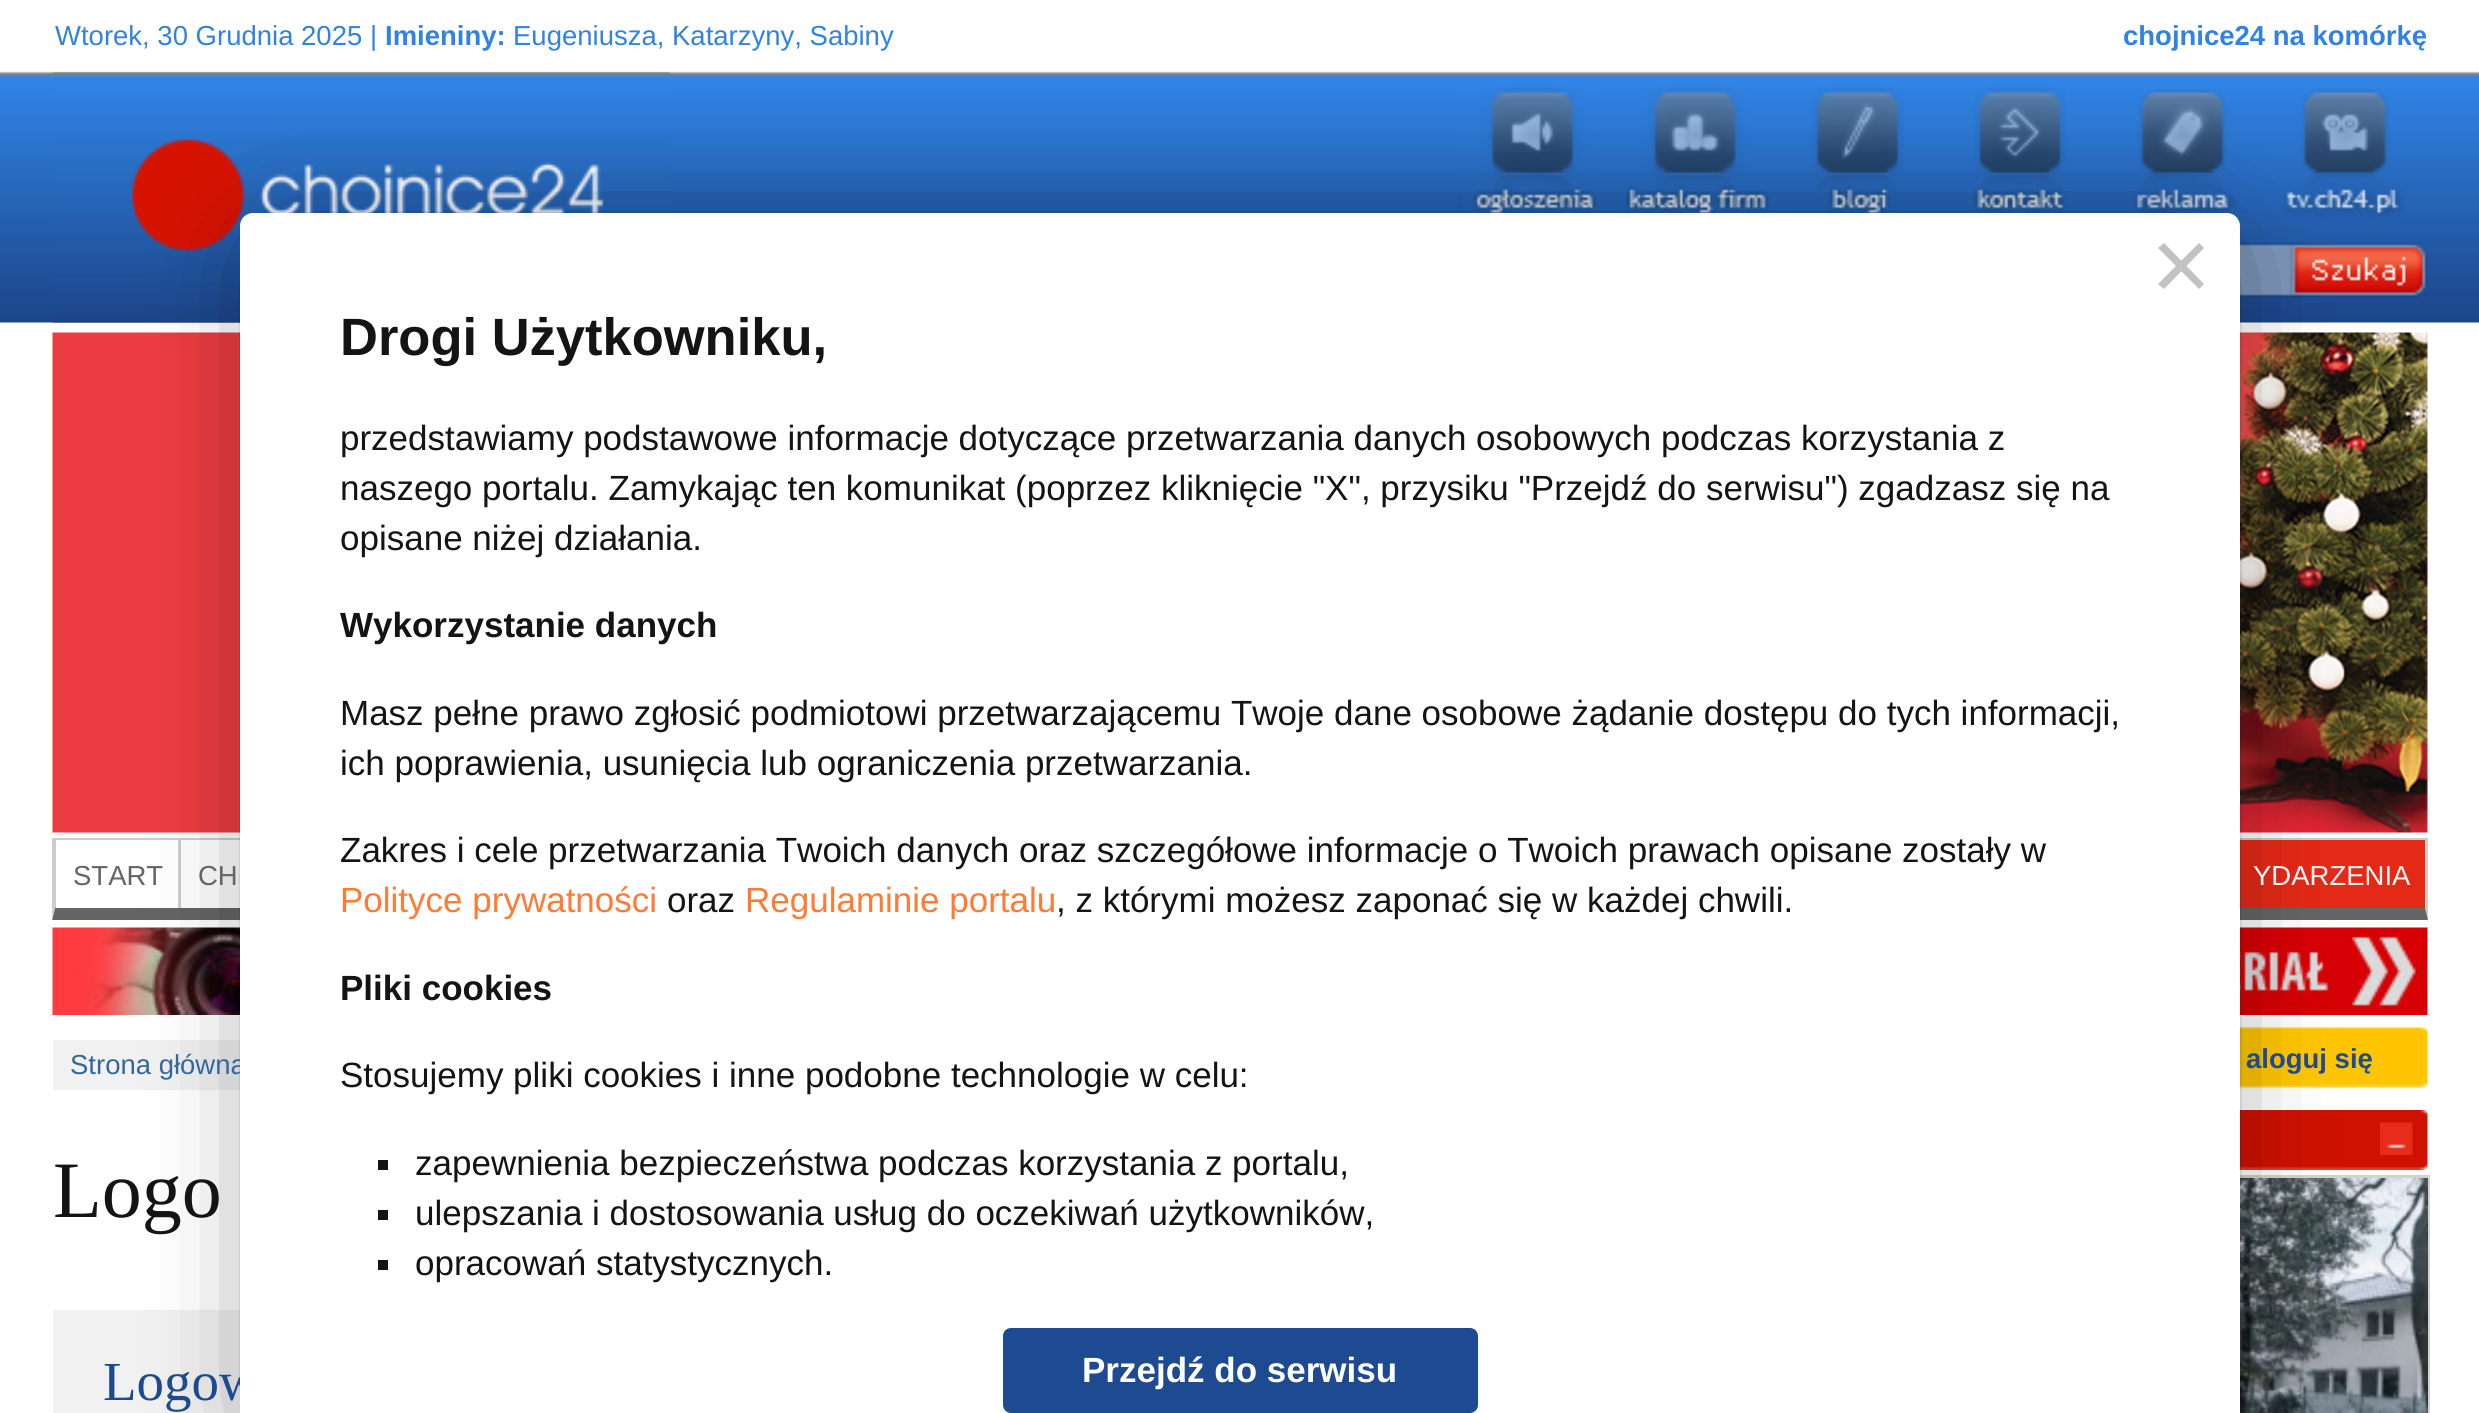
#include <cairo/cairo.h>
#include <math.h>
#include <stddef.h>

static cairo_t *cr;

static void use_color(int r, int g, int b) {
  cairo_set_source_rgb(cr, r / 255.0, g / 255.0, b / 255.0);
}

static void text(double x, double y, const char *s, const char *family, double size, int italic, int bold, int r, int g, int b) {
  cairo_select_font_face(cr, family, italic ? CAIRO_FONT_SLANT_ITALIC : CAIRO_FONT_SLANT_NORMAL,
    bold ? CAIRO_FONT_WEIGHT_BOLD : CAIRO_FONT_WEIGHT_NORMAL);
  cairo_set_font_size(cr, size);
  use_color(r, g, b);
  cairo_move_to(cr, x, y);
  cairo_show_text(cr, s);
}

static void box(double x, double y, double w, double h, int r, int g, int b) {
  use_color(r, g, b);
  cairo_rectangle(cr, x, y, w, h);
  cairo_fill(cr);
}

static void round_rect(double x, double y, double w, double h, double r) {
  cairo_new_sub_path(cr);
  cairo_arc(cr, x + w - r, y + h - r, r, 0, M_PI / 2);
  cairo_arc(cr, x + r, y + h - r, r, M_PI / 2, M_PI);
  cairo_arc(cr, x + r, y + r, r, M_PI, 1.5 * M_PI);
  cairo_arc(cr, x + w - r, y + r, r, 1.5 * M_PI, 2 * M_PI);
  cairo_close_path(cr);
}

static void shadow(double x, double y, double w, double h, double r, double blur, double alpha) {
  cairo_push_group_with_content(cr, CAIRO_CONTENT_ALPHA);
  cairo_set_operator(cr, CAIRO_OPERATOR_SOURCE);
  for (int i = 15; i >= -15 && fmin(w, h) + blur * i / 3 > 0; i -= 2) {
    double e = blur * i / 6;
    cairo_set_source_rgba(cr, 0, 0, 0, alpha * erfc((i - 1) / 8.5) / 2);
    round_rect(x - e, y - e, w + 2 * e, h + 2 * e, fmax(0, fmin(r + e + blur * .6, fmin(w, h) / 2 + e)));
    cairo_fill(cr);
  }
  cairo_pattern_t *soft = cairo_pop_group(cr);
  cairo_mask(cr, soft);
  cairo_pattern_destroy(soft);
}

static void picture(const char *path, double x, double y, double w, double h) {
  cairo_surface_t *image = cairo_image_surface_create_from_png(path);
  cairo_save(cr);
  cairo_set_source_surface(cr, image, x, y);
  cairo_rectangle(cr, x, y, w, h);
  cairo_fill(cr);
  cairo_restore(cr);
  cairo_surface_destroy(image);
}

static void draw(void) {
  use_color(255, 255, 255);
  cairo_paint(cr);
  picture("img_01.png", 0, 71, 2479, 252);
  box(40, 71, 2400, 252, 255, 255, 255);
  picture("img_02.png", 40, 71, 2400, 252);
  picture("img_03.png", 52, 72, 618, 251);
  picture("img_04.png", 1457, 87, 140, 126);
  picture("img_05.png", 1625, 87, 145, 126);
  picture("img_06.png", 1811, 87, 93, 126);
  picture("img_07.png", 1973, 87, 93, 126);
  picture("img_08.png", 2133, 89, 103, 128);
  picture("img_09.png", 2283, 89, 122, 130);
  picture("img_10.png", 2240, 242, 188, 56);
  picture("img_11.png", 52, 332, 2376, 501);
  box(53, 838, 2375, 2, 204, 204, 204);
  cairo_new_path(cr);
  cairo_move_to(cr, 2428, 838);
  cairo_line_to(cr, 2428, 920);
  cairo_line_to(cr, 2425, 908);
  cairo_line_to(cr, 2425, 840);
  cairo_close_path(cr);
  cairo_fill(cr);
  use_color(101, 101, 101);
  cairo_new_path(cr);
  cairo_move_to(cr, 2428, 920);
  cairo_line_to(cr, 52, 920);
  cairo_line_to(cr, 55, 908);
  cairo_line_to(cr, 2425, 908);
  cairo_close_path(cr);
  cairo_fill(cr);
  use_color(204, 204, 204);
  cairo_new_path(cr);
  cairo_move_to(cr, 52, 920);
  cairo_line_to(cr, 52, 838);
  cairo_line_to(cr, 55, 840);
  cairo_line_to(cr, 55, 908);
  cairo_close_path(cr);
  cairo_fill(cr);
  box(55, 840, 1, 68, 204, 204, 204);
  box(178, 840, 3, 68, 204, 204, 204);
  box(2240, 840, 185, 68, 229, 41, 23);
  picture("img_12.png", 52, 927, 2376, 88);
  box(53, 1040, 187, 50, 241, 241, 241);
  box(53, 1310, 187, 103, 241, 241, 241);
  picture("img_13.png", 2240, 1025, 188, 70);
  picture("img_14.png", 2240, 1110, 188, 60);
  cairo_rectangle(cr, 1626.5, 1176.5, 802, 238);
  use_color(210, 210, 210);
  cairo_set_line_width(cr, 3);
  cairo_stroke(cr);
  picture("img_16.png", 2240, 1178, 188, 235);
  use_color(0, 0, 0);
  shadow(288, 260, 1905, 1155, 0, 59, 0.75);
  picture("img_15.png", 2380, 1122, 33, 33);
  text(55, 45, "Wtorek, 30 Grudnia 2025 |", "Liberation Sans", 27.5, 0, 0, 48, 130, 227);
  text(385, 45, "Imieniny:", "Liberation Sans", 27.5, 0, 1, 48, 130, 227);
  text(513, 45, "Eugeniusza, Katarzyny, Sabiny", "Liberation Sans", 27.5, 0, 0, 48, 130, 227);
  text(2123, 45, "chojnice24 na komórkę", "Liberation Sans", 27.5, 0, 1, 48, 130, 227);
  text(73, 885, "START", "Liberation Sans", 27.5, 0, 0, 101, 101, 101);
  text(198, 885, "CH", "Liberation Sans", 27.5, 0, 0, 101, 101, 101);
  text(2253, 885, "YDARZENIA", "Liberation Sans", 27.5, 0, 0, 255, 245, 244);
  text(70, 1074, "Strona główna", "Liberation Sans", 27.5, 0, 0, 50, 104, 157);
  text(53, 1217, "Logo", "Liberation Serif", 80, 0, 0, 20, 20, 20);
  text(103, 1400, "Logow", "Liberation Serif", 55, 0, 0, 29, 74, 144);
  use_color(255, 255, 255);
  round_rect(240, 213, 2000, 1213, 13);
  cairo_fill(cr);
  use_color(194, 194, 194);
  cairo_new_path(cr);
  cairo_move_to(cr, 2199, 243);
  cairo_line_to(cr, 2204, 248);
  cairo_line_to(cr, 2164, 289);
  cairo_line_to(cr, 2158, 284);
  cairo_close_path(cr);
  cairo_fill(cr);
  cairo_new_path(cr);
  cairo_move_to(cr, 2158, 248);
  cairo_line_to(cr, 2164, 243);
  cairo_line_to(cr, 2204, 284);
  cairo_line_to(cr, 2199, 289);
  cairo_close_path(cr);
  cairo_fill(cr);
  use_color(30, 74, 145);
  round_rect(1003, 1328, 475, 85, 8);
  cairo_fill(cr);
  text(1082, 1382, "Przejdź do serwisu", "Liberation Sans", 35, 0, 1, 255, 255, 255);
  text(415, 1275, "opracowań statystycznych.", "Liberation Sans", 35, 0, 0, 20, 20, 20);
  box(378, 1260, 10, 10, 20, 20, 20);
  text(415, 1225, "ulepszania i dostosowania usług do oczekiwań użytkowników,", "Liberation Sans", 35, 0, 0, 20, 20, 20);
  box(378, 1210, 10, 10, 20, 20, 20);
  text(415, 1175, "zapewnienia bezpieczeństwa podczas korzystania z portalu,", "Liberation Sans", 35, 0, 0, 20, 20, 20);
  box(378, 1160, 10, 10, 20, 20, 20);
  text(340, 1087, "Stosujemy pliki cookies i inne podobne technologie w celu:", "Liberation Sans", 35, 0, 0, 20, 20, 20);
  text(340, 1000, "Pliki cookies", "Liberation Sans", 35, 0, 1, 20, 20, 20);
  text(1056, 912, ", z którymi możesz zaponać się w każdej chwili.", "Liberation Sans", 35, 0, 0, 20, 20, 20);
  text(745, 912, "Regulaminie portalu", "Liberation Sans", 35, 0, 0, 255, 123, 51);
  text(667, 912, "oraz", "Liberation Sans", 35, 0, 0, 20, 20, 20);
  text(340, 912, "Polityce prywatności", "Liberation Sans", 35, 0, 0, 255, 123, 51);
  text(340, 862, "Zakres i cele przetwarzania Twoich danych oraz szczegółowe informacje o Twoich prawach opisane zostały w", "Liberation Sans", 35, 0, 0, 20, 20, 20);
  text(340, 775, "ich poprawienia, usunięcia lub ograniczenia przetwarzania.", "Liberation Sans", 35, 0, 0, 20, 20, 20);
  text(340, 725, "Masz pełne prawo zgłosić podmiotowi przetwarzającemu Twoje dane osobowe żądanie dostępu do tych informacji,", "Liberation Sans", 35, 0, 0, 20, 20, 20);
  text(340, 637, "Wykorzystanie danych", "Liberation Sans", 35, 0, 1, 20, 20, 20);
  text(340, 550, "opisane niżej działania.", "Liberation Sans", 35, 0, 0, 20, 20, 20);
  text(340, 500, "naszego portalu. Zamykając ten komunikat (poprzez kliknięcie \"X\", przysiku \"Przejdź do serwisu\") zgadzasz się na", "Liberation Sans", 35, 0, 0, 20, 20, 20);
  text(340, 450, "przedstawiamy podstawowe informacje dotyczące przetwarzania danych osobowych podczas korzystania z", "Liberation Sans", 35, 0, 0, 20, 20, 20);
  text(340, 355, "Drogi Użytkowniku,", "Liberation Sans", 52.5, 0, 1, 20, 20, 20);
  text(2246, 1068, "aloguj się", "Liberation Sans", 27.5, 0, 1, 29, 74, 144);
}

int main(void) {
  cairo_surface_t *surface = cairo_image_surface_create(CAIRO_FORMAT_RGB24, 2479, 1413);
  cr = cairo_create(surface);
  cairo_font_options_t *options = cairo_font_options_create();
  cairo_font_options_set_hint_metrics(options, CAIRO_HINT_METRICS_OFF);
  cairo_font_options_set_hint_style(options, CAIRO_HINT_STYLE_NONE);
  cairo_set_font_options(cr, options);
  cairo_set_miter_limit(cr, 4);
  draw();
  cairo_surface_write_to_png(surface, "out.png");
  cairo_font_options_destroy(options);
  cairo_destroy(cr);
  cairo_surface_destroy(surface);
  return 0;
}
